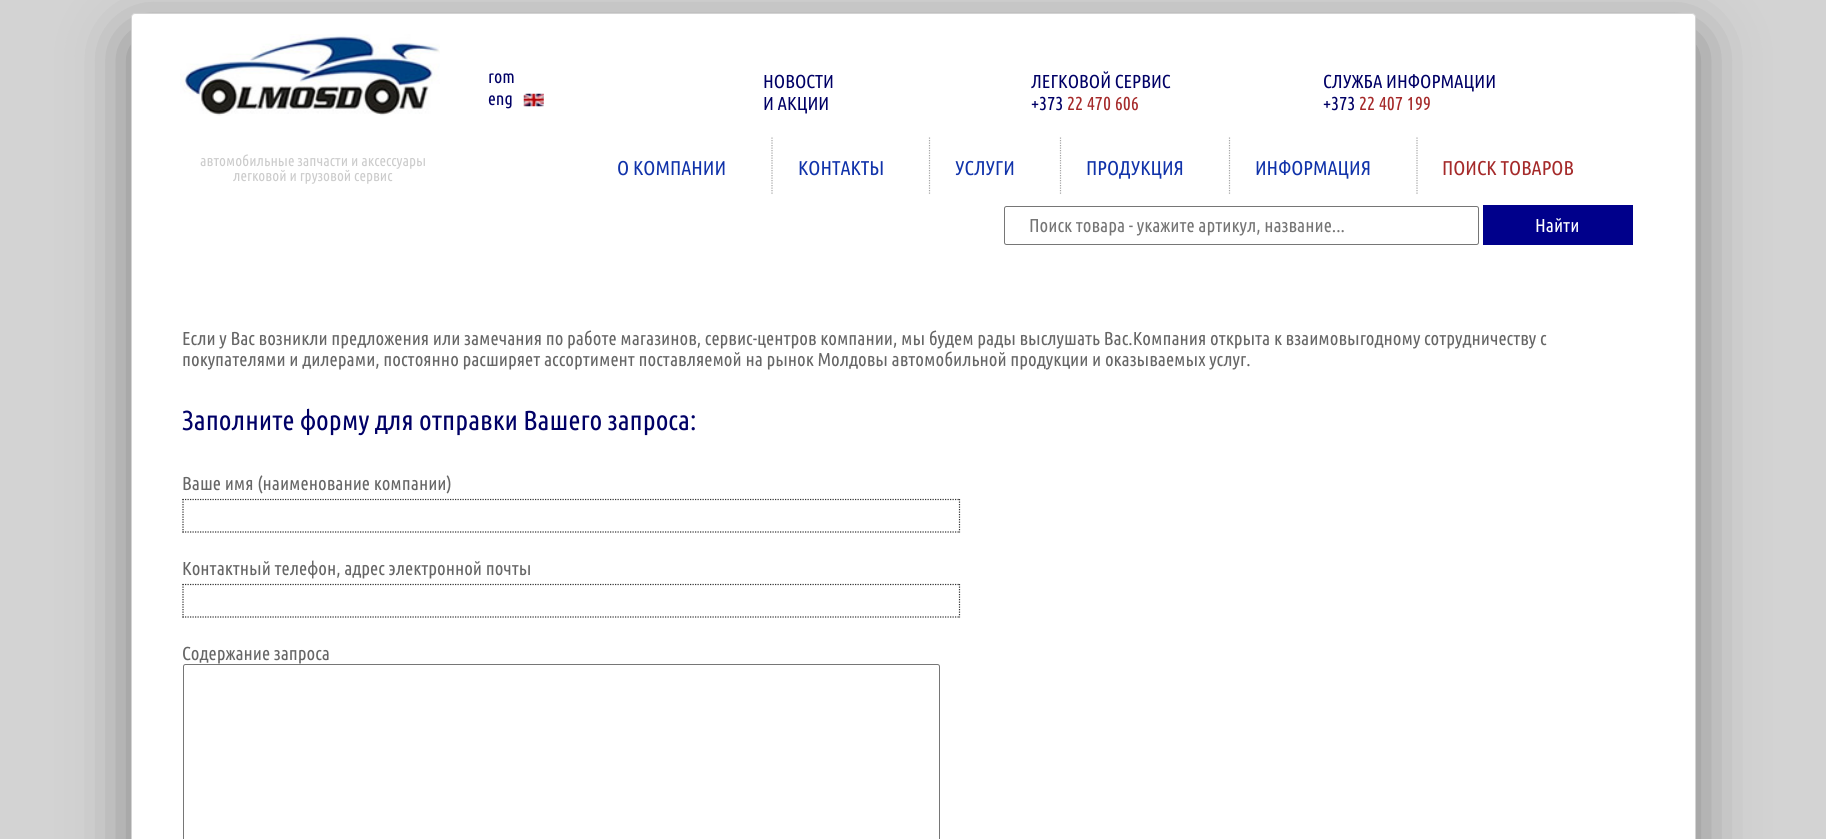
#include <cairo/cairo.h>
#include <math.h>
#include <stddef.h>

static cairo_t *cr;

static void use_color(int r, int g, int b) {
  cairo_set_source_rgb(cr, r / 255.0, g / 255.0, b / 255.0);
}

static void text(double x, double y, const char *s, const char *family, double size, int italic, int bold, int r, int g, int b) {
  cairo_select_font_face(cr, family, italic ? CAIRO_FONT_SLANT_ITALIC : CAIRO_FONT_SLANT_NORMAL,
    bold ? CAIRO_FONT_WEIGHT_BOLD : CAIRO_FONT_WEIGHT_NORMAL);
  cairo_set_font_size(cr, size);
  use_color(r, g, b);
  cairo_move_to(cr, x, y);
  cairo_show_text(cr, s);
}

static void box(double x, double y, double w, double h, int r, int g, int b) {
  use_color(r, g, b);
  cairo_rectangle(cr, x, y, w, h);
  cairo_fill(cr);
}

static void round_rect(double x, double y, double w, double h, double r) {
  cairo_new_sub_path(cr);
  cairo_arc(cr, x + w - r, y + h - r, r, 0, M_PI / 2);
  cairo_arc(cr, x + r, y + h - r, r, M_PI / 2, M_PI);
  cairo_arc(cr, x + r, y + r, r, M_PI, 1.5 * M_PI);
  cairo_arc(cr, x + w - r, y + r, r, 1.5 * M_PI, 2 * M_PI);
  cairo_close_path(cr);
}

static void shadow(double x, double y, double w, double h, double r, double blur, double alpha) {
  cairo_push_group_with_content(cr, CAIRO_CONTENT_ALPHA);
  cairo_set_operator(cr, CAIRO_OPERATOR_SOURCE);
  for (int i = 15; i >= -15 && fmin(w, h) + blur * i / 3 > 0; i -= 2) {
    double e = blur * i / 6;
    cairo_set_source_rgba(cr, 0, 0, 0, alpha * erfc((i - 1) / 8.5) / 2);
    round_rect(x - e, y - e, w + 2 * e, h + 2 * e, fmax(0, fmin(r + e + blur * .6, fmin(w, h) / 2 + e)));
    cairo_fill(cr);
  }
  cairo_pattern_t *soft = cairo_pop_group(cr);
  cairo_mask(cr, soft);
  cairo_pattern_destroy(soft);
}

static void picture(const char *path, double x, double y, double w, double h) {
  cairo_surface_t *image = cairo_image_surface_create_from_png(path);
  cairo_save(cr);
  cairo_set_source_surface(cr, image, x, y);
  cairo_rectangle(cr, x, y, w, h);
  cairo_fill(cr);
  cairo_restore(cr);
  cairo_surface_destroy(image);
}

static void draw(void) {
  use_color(211, 211, 211);
  cairo_paint(cr);
  use_color(0, 0, 0);
  shadow(131, 38, 1565, 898, 4, 31, 0.4);
  use_color(255, 255, 255);
  round_rect(131.5, 13.5, 1564, 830, 3.5);
  cairo_fill_preserve(cr);
  use_color(211, 211, 211);
  cairo_set_line_width(cr, 1);
  cairo_stroke(cr);
  picture("img_01.png", 180, 34, 260, 82);
  picture("img_02.png", 523, 93, 21, 14);
  cairo_new_path(cr);
  cairo_move_to(cr, 772, 137.5);
  cairo_line_to(cr, 772, 195);
  use_color(165, 165, 165);
  cairo_set_line_width(cr, 1.2);
  cairo_set_dash(cr, (double[]){1.25, 1.25}, 2, 0);
  cairo_stroke(cr);
  cairo_new_path(cr);
  cairo_move_to(cr, 929.5, 137.5);
  cairo_line_to(cr, 929.5, 195);
  cairo_stroke(cr);
  cairo_new_path(cr);
  cairo_move_to(cr, 1060.5, 137.5);
  cairo_line_to(cr, 1060.5, 195);
  cairo_stroke(cr);
  cairo_new_path(cr);
  cairo_move_to(cr, 1229.5, 137.5);
  cairo_line_to(cr, 1229.5, 195);
  cairo_stroke(cr);
  cairo_new_path(cr);
  cairo_move_to(cr, 1417, 137.5);
  cairo_line_to(cr, 1417, 195);
  cairo_stroke(cr);
  round_rect(1004.5, 206.5, 474, 38, 2);
  use_color(118, 118, 118);
  cairo_set_line_width(cr, 1);
  cairo_set_dash(cr, NULL, 0, 0);
  cairo_stroke(cr);
  box(1483, 205, 150, 40, 0, 0, 139);
  cairo_new_path(cr);
  cairo_move_to(cr, 182.5, 499.5);
  cairo_line_to(cr, 960, 499.5);
  use_color(51, 51, 51);
  cairo_set_line_width(cr, 1.2);
  cairo_set_dash(cr, (double[]){1.25, 1.25}, 2, 0);
  cairo_stroke(cr);
  cairo_new_path(cr);
  cairo_move_to(cr, 959.5, 499);
  cairo_line_to(cr, 959.5, 532.5);
  cairo_stroke(cr);
  cairo_new_path(cr);
  cairo_move_to(cr, 182.5, 532);
  cairo_line_to(cr, 960, 532);
  cairo_stroke(cr);
  cairo_new_path(cr);
  cairo_move_to(cr, 183, 499);
  cairo_line_to(cr, 183, 532.5);
  cairo_stroke(cr);
  cairo_new_path(cr);
  cairo_move_to(cr, 182.5, 584.5);
  cairo_line_to(cr, 960, 584.5);
  cairo_stroke(cr);
  cairo_new_path(cr);
  cairo_move_to(cr, 959.5, 584);
  cairo_line_to(cr, 959.5, 617.5);
  cairo_stroke(cr);
  cairo_new_path(cr);
  cairo_move_to(cr, 182.5, 617);
  cairo_line_to(cr, 960, 617);
  cairo_stroke(cr);
  cairo_new_path(cr);
  cairo_move_to(cr, 183, 584);
  cairo_line_to(cr, 183, 617.5);
  cairo_stroke(cr);
  round_rect(183.5, 664.5, 756, 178, 2);
  use_color(118, 118, 118);
  cairo_set_line_width(cr, 1);
  cairo_set_dash(cr, NULL, 0, 0);
  cairo_stroke(cr);
  text(488, 83, "rom", "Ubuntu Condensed", 18, 0, 0, 0, 0, 102);
  text(488, 105, "eng", "Ubuntu Condensed", 18, 0, 0, 0, 0, 102);
  text(763, 88, "НОВОСТИ", "Ubuntu Condensed", 18.75, 0, 0, 0, 0, 102);
  text(763, 110, "И АКЦИИ", "Ubuntu Condensed", 18.75, 0, 0, 0, 0, 102);
  text(1031, 88, "ЛЕГКОВОЙ СЕРВИС", "Ubuntu Condensed", 18.75, 0, 0, 0, 0, 102);
  text(1031, 110, "+373", "Ubuntu Condensed", 18.75, 0, 0, 0, 0, 102);
  text(1067, 110, "22 470 606", "Ubuntu Condensed", 18.75, 0, 0, 165, 42, 42);
  text(1323, 88, "СЛУЖБА ИНФОРМАЦИИ", "Ubuntu Condensed", 18.75, 0, 0, 0, 0, 102);
  text(1323, 110, "+373", "Ubuntu Condensed", 18.75, 0, 0, 0, 0, 102);
  text(1359, 110, "22 407 199", "Ubuntu Condensed", 18.75, 0, 0, 165, 42, 42);
  text(200, 166, "автомобильные запчасти и аксессуары", "Ubuntu Condensed", 15, 0, 0, 204, 204, 204);
  text(233, 181, "легковой и грузовой сервис", "Ubuntu Condensed", 15, 0, 0, 204, 204, 204);
  text(617, 175, "О КОМПАНИИ", "Ubuntu Condensed", 20, 0, 0, 17, 51, 170);
  text(798, 175, "КОНТАКТЫ", "Ubuntu Condensed", 20, 0, 0, 17, 51, 170);
  text(955, 175, "УСЛУГИ", "Ubuntu Condensed", 20, 0, 0, 17, 51, 170);
  text(1086, 175, "ПРОДУКЦИЯ", "Ubuntu Condensed", 20, 0, 0, 17, 51, 170);
  text(1255, 175, "ИНФОРМАЦИЯ", "Ubuntu Condensed", 20, 0, 0, 17, 51, 170);
  text(1442, 175, "ПОИСК ТОВАРОВ", "Ubuntu Condensed", 20, 0, 0, 165, 42, 42);
  text(1029, 232, "Поиск товара - укажите артикул, название...", "Ubuntu Condensed", 18.75, 0, 0, 117, 117, 117);
  text(1535, 232, "Найти", "Ubuntu Condensed", 18.75, 0, 0, 255, 255, 255);
  text(182, 345, "Если у Вас возникли предложения или замечания по работе магазинов, сервис-центров компании, мы будем рады выслушать Вас.Компания открыта к взаимовыгодному сотрудничеству с", "Ubuntu Condensed", 18.75, 0, 0, 102, 102, 102);
  text(182, 366, "покупателями и дилерами, постоянно расширяет ассортимент поставляемой на рынок Молдовы автомобильной продукции и оказываемых услуг.", "Ubuntu Condensed", 18.75, 0, 0, 102, 102, 102);
  text(182, 430, "Заполните форму для отправки Вашего запроса:", "Ubuntu Condensed", 27.5, 0, 0, 0, 0, 102);
  text(182, 490, "Ваше имя (наименование компании)", "Ubuntu Condensed", 18.75, 0, 0, 102, 102, 102);
  text(182, 575, "Контактный телефон, адрес электронной почты", "Ubuntu Condensed", 18.75, 0, 0, 102, 102, 102);
  text(182, 660, "Содержание запроса", "Ubuntu Condensed", 18.75, 0, 0, 102, 102, 102);
}

int main(void) {
  cairo_surface_t *surface = cairo_image_surface_create(CAIRO_FORMAT_RGB24, 1826, 839);
  cr = cairo_create(surface);
  cairo_font_options_t *options = cairo_font_options_create();
  cairo_font_options_set_hint_metrics(options, CAIRO_HINT_METRICS_OFF);
  cairo_font_options_set_hint_style(options, CAIRO_HINT_STYLE_NONE);
  cairo_set_font_options(cr, options);
  cairo_set_miter_limit(cr, 4);
  draw();
  cairo_surface_write_to_png(surface, "out.png");
  cairo_font_options_destroy(options);
  cairo_destroy(cr);
  cairo_surface_destroy(surface);
  return 0;
}
